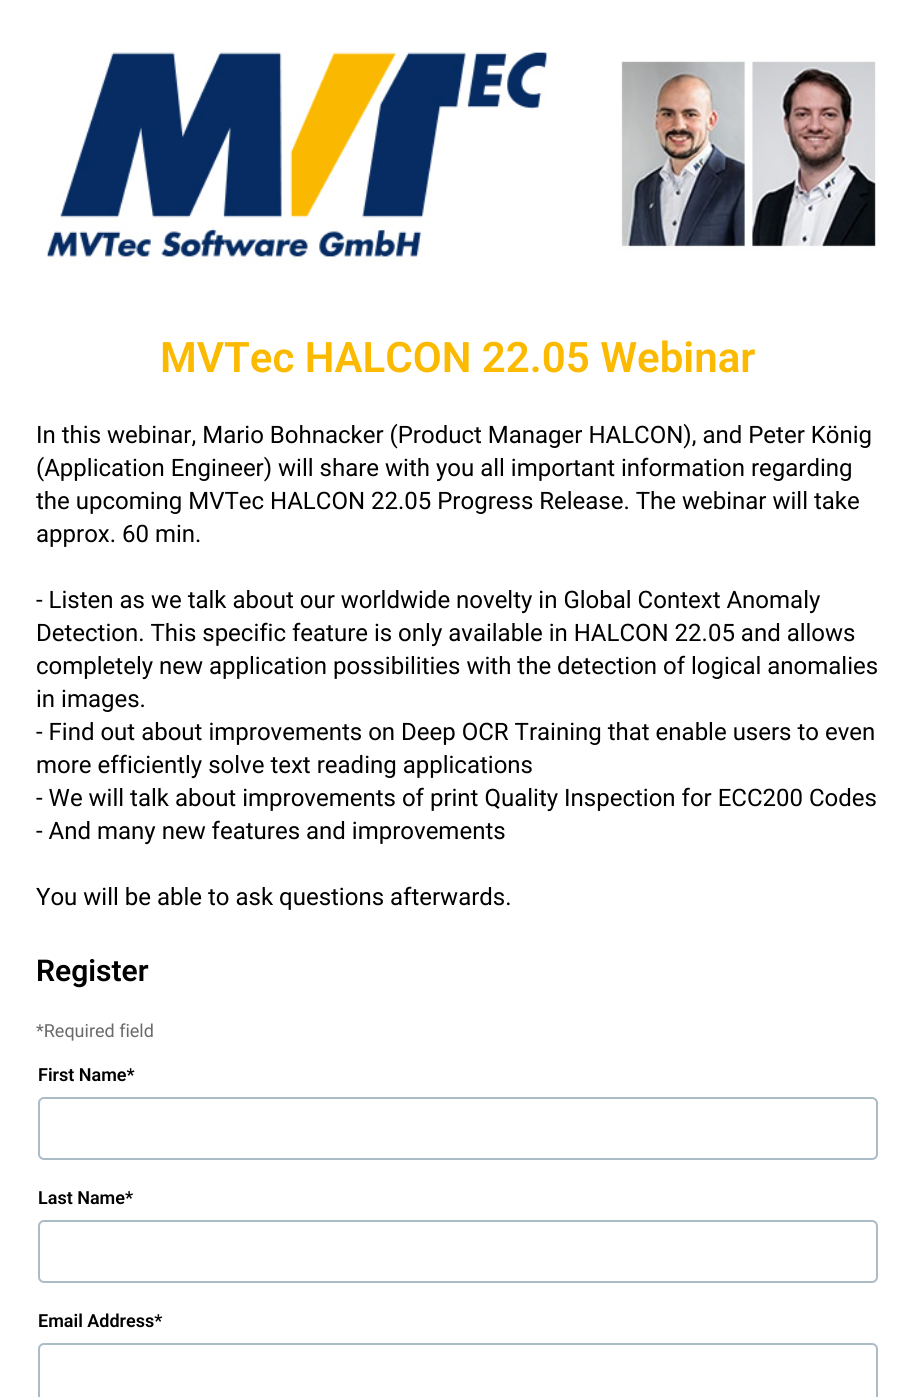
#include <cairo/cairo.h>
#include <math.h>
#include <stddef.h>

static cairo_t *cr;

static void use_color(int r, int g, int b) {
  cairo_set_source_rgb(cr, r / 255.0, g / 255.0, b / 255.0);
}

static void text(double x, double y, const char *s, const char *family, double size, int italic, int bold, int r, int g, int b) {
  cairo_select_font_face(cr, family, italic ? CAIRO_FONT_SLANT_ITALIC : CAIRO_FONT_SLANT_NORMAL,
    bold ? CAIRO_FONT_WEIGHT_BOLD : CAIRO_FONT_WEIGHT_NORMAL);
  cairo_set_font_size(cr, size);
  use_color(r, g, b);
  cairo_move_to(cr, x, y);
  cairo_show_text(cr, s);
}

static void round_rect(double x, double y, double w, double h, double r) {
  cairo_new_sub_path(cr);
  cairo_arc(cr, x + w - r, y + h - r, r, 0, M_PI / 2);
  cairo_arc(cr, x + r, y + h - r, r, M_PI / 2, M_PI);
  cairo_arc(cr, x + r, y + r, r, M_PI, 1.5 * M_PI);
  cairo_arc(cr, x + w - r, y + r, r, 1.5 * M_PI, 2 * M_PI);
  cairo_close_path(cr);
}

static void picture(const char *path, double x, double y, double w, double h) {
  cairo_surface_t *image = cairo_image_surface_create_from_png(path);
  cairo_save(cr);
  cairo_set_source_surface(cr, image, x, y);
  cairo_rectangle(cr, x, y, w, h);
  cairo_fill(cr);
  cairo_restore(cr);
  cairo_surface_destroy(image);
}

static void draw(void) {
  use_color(255, 255, 255);
  cairo_paint(cr);
  picture("img_01.png", 46, 52, 502, 212);
  picture("img_02.png", 618, 61, 258, 190);
  round_rect(39, 1098, 838, 61, 5);
  use_color(172, 188, 199);
  cairo_stroke(cr);
  round_rect(39, 1221, 838, 61, 5);
  cairo_stroke(cr);
  round_rect(39, 1344, 838, 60, 5);
  cairo_stroke(cr);
  text(160, 372, "MVTec HALCON 22.05 Webinar", "Roboto SemiBold", 42, 0, 0, 251, 186, 0);
  text(36, 443, "In this webinar, Mario Bohnacker (Product Manager HALCON), and Peter König", "Roboto", 24, 0, 0, 0, 0, 0);
  text(36, 476, "(Application Engineer) will share with you all important information regarding", "Roboto", 24, 0, 0, 0, 0, 0);
  text(36, 509, "the upcoming MVTec HALCON 22.05 Progress Release. The webinar will take", "Roboto", 24, 0, 0, 0, 0, 0);
  text(36, 542, "approx. 60 min.", "Roboto", 24, 0, 0, 0, 0, 0);
  text(36, 608, "- Listen as we talk about our worldwide novelty in Global Context Anomaly", "Roboto", 24, 0, 0, 0, 0, 0);
  text(36, 641, "Detection. This specific feature is only available in HALCON 22.05 and allows", "Roboto", 24, 0, 0, 0, 0, 0);
  text(36, 674, "completely new application possibilities with the detection of logical anomalies", "Roboto", 24, 0, 0, 0, 0, 0);
  text(36, 707, "in images.", "Roboto", 24, 0, 0, 0, 0, 0);
  text(36, 740, "- Find out about improvements on Deep OCR Training that enable users to even", "Roboto", 24, 0, 0, 0, 0, 0);
  text(36, 773, "more efficiently solve text reading applications", "Roboto", 24, 0, 0, 0, 0, 0);
  text(36, 806, "- We will talk about improvements of print Quality Inspection for ECC200 Codes", "Roboto", 24, 0, 0, 0, 0, 0);
  text(36, 839, "- And many new features and improvements", "Roboto", 24, 0, 0, 0, 0, 0);
  text(36, 905, "You will be able to ask questions afterwards.", "Roboto", 24, 0, 0, 0, 0, 0);
  text(36, 981, "Register", "Roboto SemiBold", 30, 0, 0, 0, 0, 0);
  text(36, 1037, "*Required field", "Roboto", 18, 0, 0, 107, 105, 105);
  text(38, 1081, "First Name*", "Roboto SemiBold", 18, 0, 0, 0, 0, 0);
  text(38, 1204, "Last Name*", "Roboto SemiBold", 18, 0, 0, 0, 0, 0);
  text(38, 1327, "Email Address*", "Roboto SemiBold", 18, 0, 0, 0, 0, 0);
}

int main(void) {
  cairo_surface_t *surface = cairo_image_surface_create(CAIRO_FORMAT_RGB24, 915, 1397);
  cr = cairo_create(surface);
  cairo_font_options_t *options = cairo_font_options_create();
  cairo_font_options_set_hint_metrics(options, CAIRO_HINT_METRICS_OFF);
  cairo_font_options_set_hint_style(options, CAIRO_HINT_STYLE_NONE);
  cairo_set_font_options(cr, options);
  cairo_set_miter_limit(cr, 4);
  draw();
  cairo_surface_write_to_png(surface, "out.png");
  cairo_font_options_destroy(options);
  cairo_destroy(cr);
  cairo_surface_destroy(surface);
  return 0;
}
